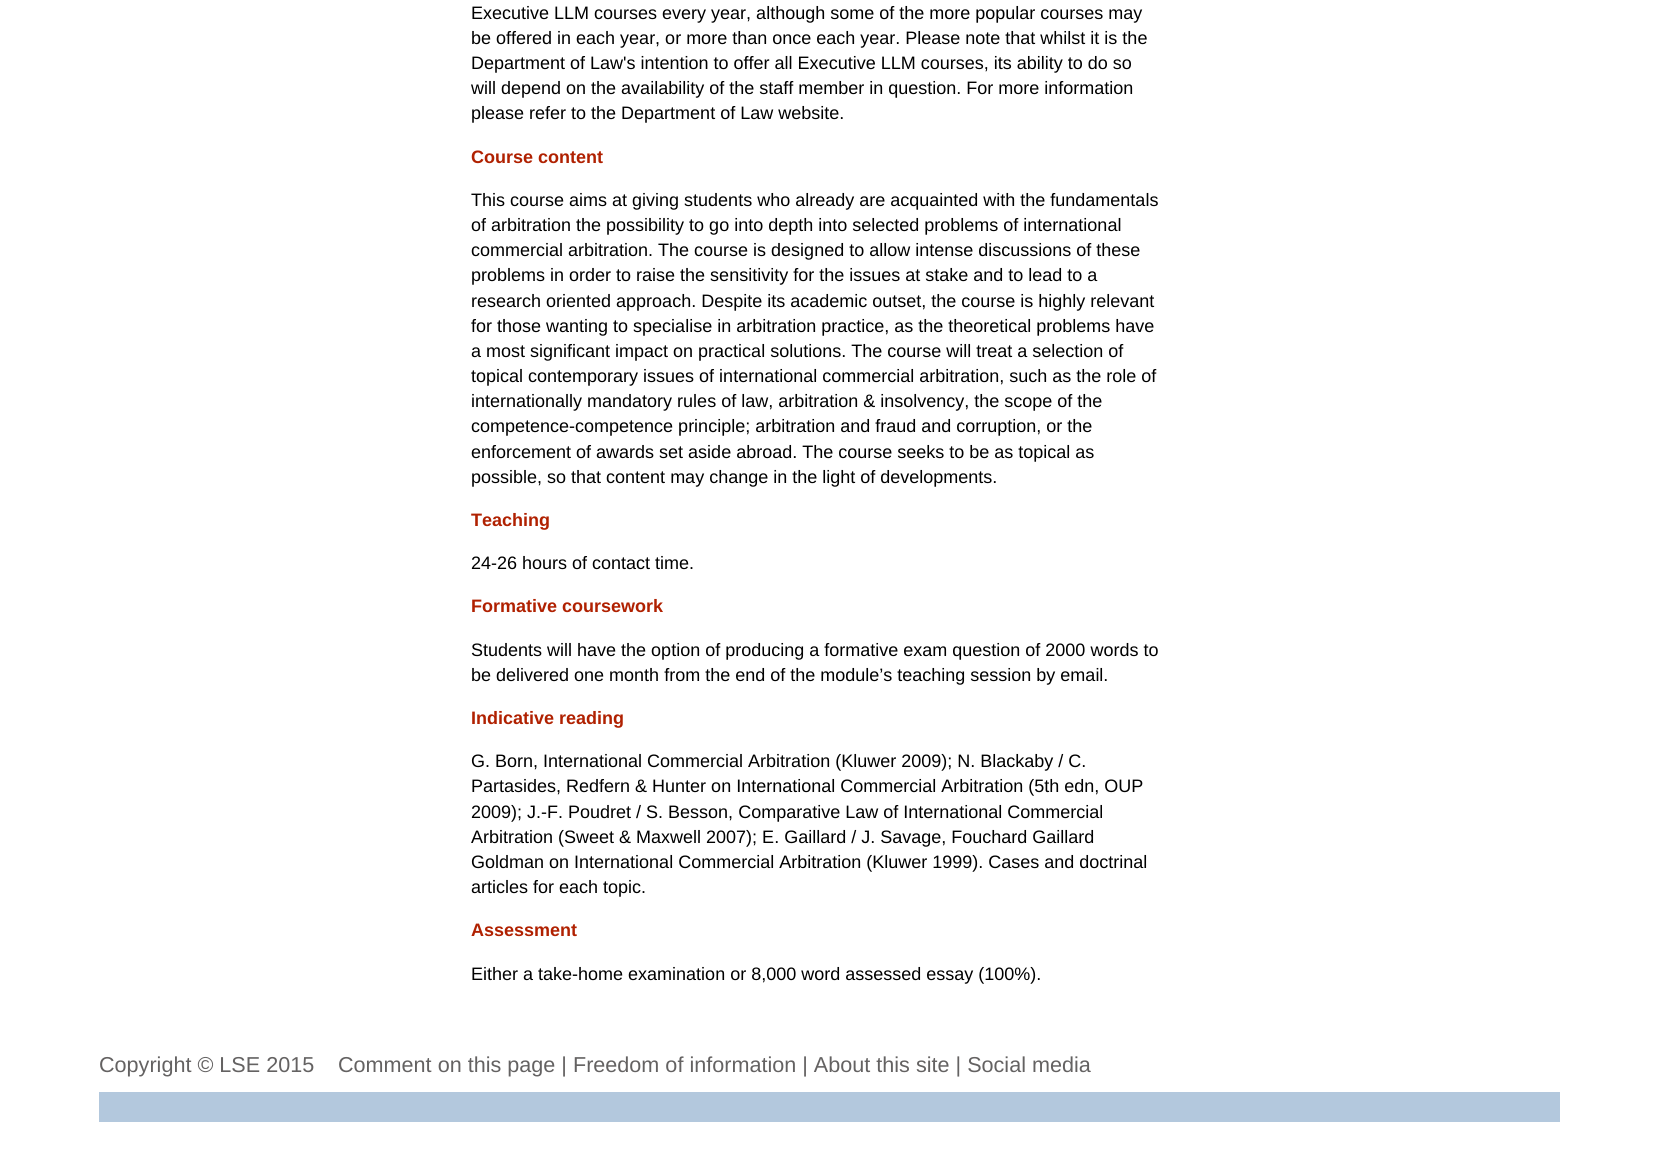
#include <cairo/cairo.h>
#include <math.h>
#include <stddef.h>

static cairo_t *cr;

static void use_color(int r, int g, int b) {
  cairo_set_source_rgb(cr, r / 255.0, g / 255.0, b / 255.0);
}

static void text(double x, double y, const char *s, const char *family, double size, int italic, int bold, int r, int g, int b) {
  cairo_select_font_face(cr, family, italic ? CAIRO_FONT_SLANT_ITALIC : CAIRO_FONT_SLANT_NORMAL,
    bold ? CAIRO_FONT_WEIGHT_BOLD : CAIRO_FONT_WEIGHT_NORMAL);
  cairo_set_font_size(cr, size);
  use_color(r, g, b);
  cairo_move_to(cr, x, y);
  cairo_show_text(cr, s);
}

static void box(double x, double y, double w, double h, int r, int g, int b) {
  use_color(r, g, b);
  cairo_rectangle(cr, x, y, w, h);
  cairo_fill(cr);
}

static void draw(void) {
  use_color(255, 255, 255);
  cairo_paint(cr);
  box(99, 1092, 1461, 30, 179, 200, 221);
  text(471, 19, "Executive LLM courses every year, although some of the more popular courses may", "Liberation Sans", 18, 0, 0, 0, 0, 0);
  text(471, 44, "be offered in each year, or more than once each year. Please note that whilst it is the", "Liberation Sans", 18, 0, 0, 0, 0, 0);
  text(471, 69, "Department of Law's intention to offer all Executive LLM courses, its ability to do so", "Liberation Sans", 18, 0, 0, 0, 0, 0);
  text(471, 94, "will depend on the availability of the staff member in question. For more information", "Liberation Sans", 18, 0, 0, 0, 0, 0);
  text(471, 119, "please refer to the Department of Law website.", "Liberation Sans", 18, 0, 0, 0, 0, 0);
  text(471, 163, "Course content", "Liberation Sans", 18, 0, 1, 176, 33, 1);
  text(471, 206, "This course aims at giving students who already are acquainted with the fundamentals", "Liberation Sans", 18, 0, 0, 0, 0, 0);
  text(471, 231, "of arbitration the possibility to go into depth into selected problems of international", "Liberation Sans", 18, 0, 0, 0, 0, 0);
  text(471, 256, "commercial arbitration. The course is designed to allow intense discussions of these", "Liberation Sans", 18, 0, 0, 0, 0, 0);
  text(471, 281, "problems in order to raise the sensitivity for the issues at stake and to lead to a", "Liberation Sans", 18, 0, 0, 0, 0, 0);
  text(471, 307, "research oriented approach. Despite its academic outset, the course is highly relevant", "Liberation Sans", 18, 0, 0, 0, 0, 0);
  text(471, 332, "for those wanting to specialise in arbitration practice, as the theoretical problems have", "Liberation Sans", 18, 0, 0, 0, 0, 0);
  text(471, 357, "a most significant impact on practical solutions. The course will treat a selection of", "Liberation Sans", 18, 0, 0, 0, 0, 0);
  text(471, 382, "topical contemporary issues of international commercial arbitration, such as the role of", "Liberation Sans", 18, 0, 0, 0, 0, 0);
  text(471, 407, "internationally mandatory rules of law, arbitration & insolvency, the scope of the", "Liberation Sans", 18, 0, 0, 0, 0, 0);
  text(471, 432, "competence-competence principle; arbitration and fraud and corruption, or the", "Liberation Sans", 18, 0, 0, 0, 0, 0);
  text(471, 458, "enforcement of awards set aside abroad. The course seeks to be as topical as", "Liberation Sans", 18, 0, 0, 0, 0, 0);
  text(471, 483, "possible, so that content may change in the light of developments.", "Liberation Sans", 18, 0, 0, 0, 0, 0);
  text(471, 526, "Teaching", "Liberation Sans", 18, 0, 1, 176, 33, 1);
  text(471, 569, "24-26 hours of contact time.", "Liberation Sans", 18, 0, 0, 0, 0, 0);
  text(471, 612, "Formative coursework", "Liberation Sans", 18, 0, 1, 176, 33, 1);
  text(471, 656, "Students will have the option of producing a formative exam question of 2000 words to", "Liberation Sans", 18, 0, 0, 0, 0, 0);
  text(471, 681, "be delivered one month from the end of the module’s teaching session by email.", "Liberation Sans", 18, 0, 0, 0, 0, 0);
  text(471, 724, "Indicative reading", "Liberation Sans", 18, 0, 1, 176, 33, 1);
  text(471, 767, "G. Born, International Commercial Arbitration (Kluwer 2009); N. Blackaby / C.", "Liberation Sans", 18, 0, 0, 0, 0, 0);
  text(471, 792, "Partasides, Redfern & Hunter on International Commercial Arbitration (5th edn, OUP", "Liberation Sans", 18, 0, 0, 0, 0, 0);
  text(471, 818, "2009); J.-F. Poudret / S. Besson, Comparative Law of International Commercial", "Liberation Sans", 18, 0, 0, 0, 0, 0);
  text(471, 843, "Arbitration (Sweet & Maxwell 2007); E. Gaillard / J. Savage, Fouchard Gaillard", "Liberation Sans", 18, 0, 0, 0, 0, 0);
  text(471, 868, "Goldman on International Commercial Arbitration (Kluwer 1999). Cases and doctrinal", "Liberation Sans", 18, 0, 0, 0, 0, 0);
  text(471, 893, "articles for each topic.", "Liberation Sans", 18, 0, 0, 0, 0, 0);
  text(471, 936, "Assessment", "Liberation Sans", 18, 0, 1, 176, 33, 1);
  text(471, 980, "Either a take-home examination or 8,000 word assessed essay (100%).", "Liberation Sans", 18, 0, 0, 0, 0, 0);
  text(99, 1072, "Copyright © LSE 2015", "Liberation Sans", 21.6, 0, 0, 100, 98, 98);
  text(338, 1072, "Comment on this page | Freedom of information | About this site | Social media", "Liberation Sans", 21.6, 0, 0, 100, 98, 98);
}

int main(void) {
  cairo_surface_t *surface = cairo_image_surface_create(CAIRO_FORMAT_RGB24, 1658, 1152);
  cr = cairo_create(surface);
  cairo_font_options_t *options = cairo_font_options_create();
  cairo_font_options_set_hint_metrics(options, CAIRO_HINT_METRICS_OFF);
  cairo_font_options_set_hint_style(options, CAIRO_HINT_STYLE_NONE);
  cairo_set_font_options(cr, options);
  cairo_set_miter_limit(cr, 4);
  draw();
  cairo_surface_write_to_png(surface, "out.png");
  cairo_font_options_destroy(options);
  cairo_destroy(cr);
  cairo_surface_destroy(surface);
  return 0;
}
